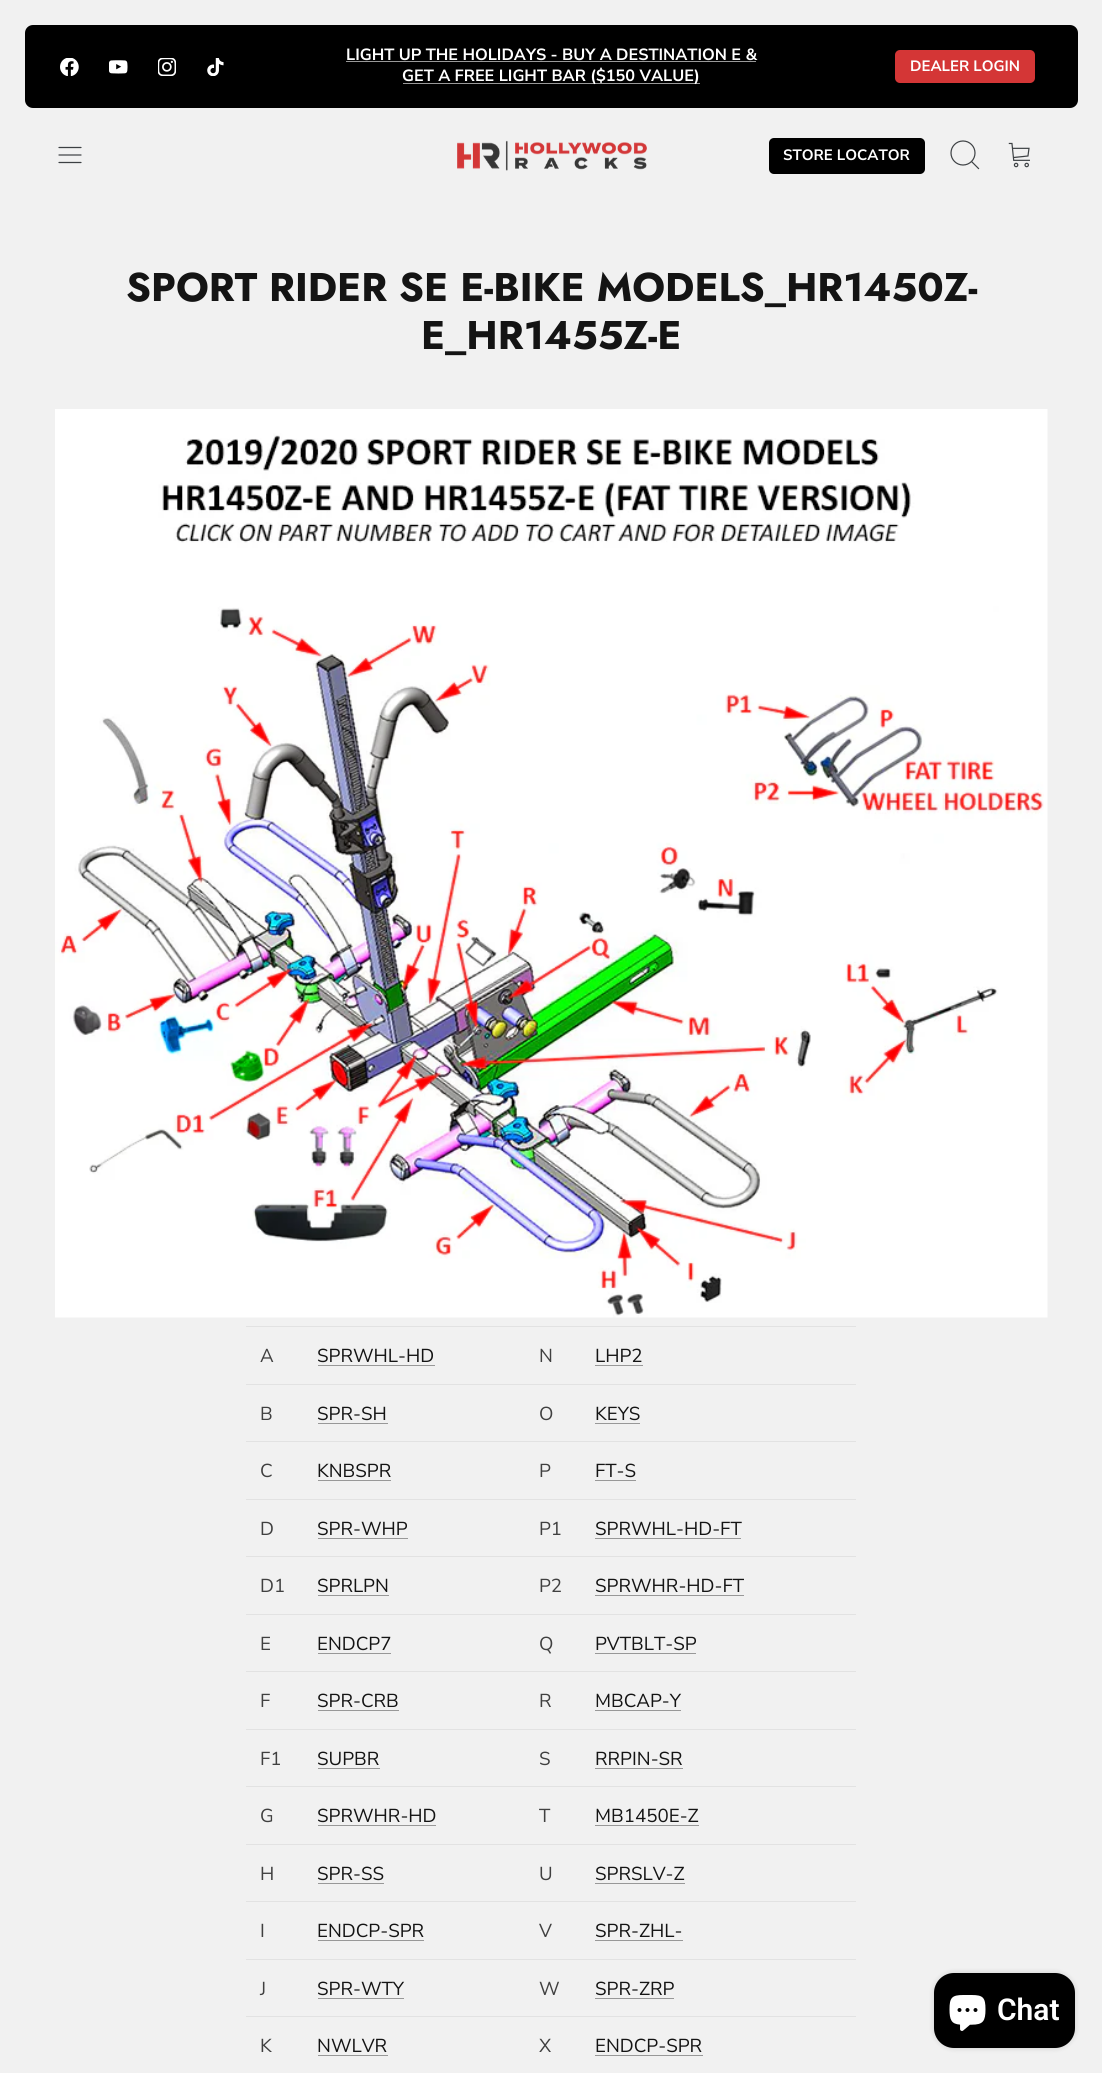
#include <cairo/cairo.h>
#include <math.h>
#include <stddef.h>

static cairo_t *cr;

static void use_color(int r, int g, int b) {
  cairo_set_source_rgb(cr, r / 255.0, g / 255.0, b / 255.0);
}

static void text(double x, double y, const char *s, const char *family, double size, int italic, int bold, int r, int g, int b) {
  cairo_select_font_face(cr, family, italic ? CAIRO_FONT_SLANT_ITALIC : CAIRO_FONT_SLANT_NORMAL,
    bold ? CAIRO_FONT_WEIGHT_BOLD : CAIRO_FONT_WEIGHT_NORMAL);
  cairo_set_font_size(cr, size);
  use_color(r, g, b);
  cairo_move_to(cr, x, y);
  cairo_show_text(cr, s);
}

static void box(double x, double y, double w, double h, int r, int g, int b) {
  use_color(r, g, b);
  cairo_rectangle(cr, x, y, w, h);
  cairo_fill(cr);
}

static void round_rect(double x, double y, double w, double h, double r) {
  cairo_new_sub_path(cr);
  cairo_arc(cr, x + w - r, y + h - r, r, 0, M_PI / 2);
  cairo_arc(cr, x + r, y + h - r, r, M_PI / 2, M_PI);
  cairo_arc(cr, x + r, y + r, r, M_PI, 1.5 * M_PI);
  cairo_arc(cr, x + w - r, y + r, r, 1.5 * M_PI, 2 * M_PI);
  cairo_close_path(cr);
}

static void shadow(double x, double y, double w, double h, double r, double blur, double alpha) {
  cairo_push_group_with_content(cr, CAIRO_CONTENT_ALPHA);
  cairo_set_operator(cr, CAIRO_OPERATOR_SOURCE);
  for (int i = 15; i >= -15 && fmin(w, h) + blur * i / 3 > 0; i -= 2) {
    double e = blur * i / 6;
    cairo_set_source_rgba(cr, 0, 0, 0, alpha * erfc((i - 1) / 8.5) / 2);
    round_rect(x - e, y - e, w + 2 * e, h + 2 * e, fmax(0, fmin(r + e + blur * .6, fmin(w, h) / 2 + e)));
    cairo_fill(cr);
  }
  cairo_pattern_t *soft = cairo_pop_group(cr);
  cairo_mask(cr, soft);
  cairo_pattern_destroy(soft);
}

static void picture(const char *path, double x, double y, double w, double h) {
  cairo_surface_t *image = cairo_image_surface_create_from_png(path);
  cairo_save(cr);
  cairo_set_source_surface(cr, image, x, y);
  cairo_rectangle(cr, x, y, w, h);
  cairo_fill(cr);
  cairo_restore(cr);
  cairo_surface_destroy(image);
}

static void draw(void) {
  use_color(241, 241, 241);
  cairo_paint(cr);
  use_color(0, 0, 0);
  round_rect(25, 25, 1053, 83, 8);
  cairo_fill(cr);
  picture("img_01.png", 60, 58, 19, 18);
  picture("img_02.png", 109, 60, 19, 14);
  picture("img_03.png", 158, 58, 18, 18);
  picture("img_04.png", 207, 58, 17, 18);
  box(346, 61, 410, 1, 153, 153, 153);
  box(403, 83, 297, 1, 153, 153, 153);
  use_color(212, 54, 54);
  round_rect(895, 50, 140, 33, 5);
  cairo_fill(cr);
  cairo_new_path(cr);
  cairo_move_to(cr, 59, 155);
  cairo_line_to(cr, 81, 155);
  cairo_move_to(cr, 59, 147.5);
  cairo_line_to(cr, 81, 147.5);
  cairo_move_to(cr, 59, 162.5);
  cairo_line_to(cr, 81, 162.5);
  use_color(60, 64, 67);
  cairo_set_line_width(cr, 1.2);
  cairo_set_line_cap(cr, CAIRO_LINE_CAP_ROUND);
  cairo_set_line_join(cr, CAIRO_LINE_JOIN_ROUND);
  cairo_stroke(cr);
  picture("img_05.png", 457, 140, 190, 31);
  use_color(0, 0, 0);
  round_rect(769, 138, 156, 36, 5);
  cairo_fill(cr);
  cairo_arc(cr, 963, 153, 12, 0, 2 * M_PI);
  use_color(60, 64, 67);
  cairo_set_line_cap(cr, CAIRO_LINE_CAP_BUTT);
  cairo_set_line_join(cr, CAIRO_LINE_JOIN_MITER);
  cairo_stroke(cr);
  cairo_new_path(cr);
  cairo_move_to(cr, 972, 162);
  cairo_line_to(cr, 978.5, 168.5);
  cairo_set_line_cap(cr, CAIRO_LINE_CAP_SQUARE);
  cairo_stroke(cr);
  picture("img_06.png", 1008, 142, 22, 26);
  picture("img_07.png", 55, 409, 993, 909);
  box(318, 1365, 117, 1, 152, 152, 152);
  box(246, 1326, 610, 1, 226, 226, 226);
  box(595, 1365, 48, 1, 152, 152, 152);
  box(318, 1423, 70, 1, 152, 152, 152);
  box(246, 1384, 610, 1, 226, 226, 226);
  box(595, 1423, 45, 1, 152, 152, 152);
  box(318, 1480, 73, 1, 152, 152, 152);
  box(246, 1441, 610, 1, 226, 226, 226);
  box(595, 1480, 41, 1, 152, 152, 152);
  box(318, 1538, 90, 1, 152, 152, 152);
  box(246, 1499, 610, 1, 226, 226, 226);
  box(595, 1538, 146, 1, 152, 152, 152);
  box(318, 1595, 71, 1, 152, 152, 152);
  box(246, 1556, 610, 1, 226, 226, 226);
  box(595, 1595, 149, 1, 152, 152, 152);
  box(318, 1653, 73, 1, 152, 152, 152);
  box(246, 1614, 610, 1, 226, 226, 226);
  box(595, 1653, 101, 1, 152, 152, 152);
  box(318, 1710, 81, 1, 152, 152, 152);
  box(246, 1671, 610, 1, 226, 226, 226);
  box(595, 1710, 86, 1, 152, 152, 152);
  box(318, 1768, 62, 1, 152, 152, 152);
  box(246, 1729, 610, 1, 226, 226, 226);
  box(595, 1768, 88, 1, 152, 152, 152);
  box(318, 1825, 118, 1, 152, 152, 152);
  box(246, 1786, 610, 1, 226, 226, 226);
  box(595, 1825, 104, 1, 152, 152, 152);
  box(318, 1883, 66, 1, 152, 152, 152);
  box(246, 1844, 610, 1, 226, 226, 226);
  box(595, 1883, 90, 1, 152, 152, 152);
  box(318, 1940, 106, 1, 152, 152, 152);
  box(246, 1901, 610, 1, 226, 226, 226);
  box(595, 1940, 88, 1, 152, 152, 152);
  box(318, 1998, 86, 1, 152, 152, 152);
  box(246, 1959, 610, 1, 226, 226, 226);
  box(595, 1998, 79, 1, 152, 152, 152);
  box(318, 2055, 70, 1, 152, 152, 152);
  box(246, 2016, 610, 1, 226, 226, 226);
  box(595, 2055, 108, 1, 152, 152, 152);
  use_color(0, 0, 0);
  shadow(934, 1973, 141, 75, 20, 3, 0.15);
  use_color(0, 0, 0);
  round_rect(934, 1973, 141, 75, 20);
  cairo_fill(cr);
  picture("img_08.png", 949, 1995, 37, 36);
  text(346, 60, "LIGHT UP THE HOLIDAYS - BUY A DESTINATION E &", "Nunito Sans", 16.25, 0, 1, 255, 255, 255);
  text(402, 81, "GET A FREE LIGHT BAR ($150 VALUE)", "Nunito Sans", 16.25, 0, 1, 255, 255, 255);
  text(910, 71, "DEALER LOGIN", "Nunito Sans", 15, 0, 1, 255, 255, 255);
  text(783, 160, "STORE LOCATOR", "Nunito Sans", 15, 0, 1, 255, 255, 255);
  text(126, 301, "SPORT RIDER SE E-BIKE MODELS_HR1450Z-", "Jost", 40, 0, 1, 20, 20, 20);
  text(421, 349, "E_HR1455Z-E", "Jost", 40, 0, 1, 20, 20, 20);
  text(260, 1362, "A", "Nunito Sans", 18.75, 0, 0, 64, 64, 64);
  text(317, 1362, "SPRWHL-HD", "Nunito Sans", 18.75, 0, 0, 20, 20, 20);
  text(539, 1362, "N", "Nunito Sans", 18.75, 0, 0, 64, 64, 64);
  text(595, 1362, "LHP2", "Nunito Sans", 18.75, 0, 0, 20, 20, 20);
  text(260, 1420, "B", "Nunito Sans", 18.75, 0, 0, 64, 64, 64);
  text(317, 1420, "SPR-SH", "Nunito Sans", 18.75, 0, 0, 20, 20, 20);
  text(539, 1420, "O", "Nunito Sans", 18.75, 0, 0, 64, 64, 64);
  text(595, 1420, "KEYS", "Nunito Sans", 18.75, 0, 0, 20, 20, 20);
  text(260, 1477, "C", "Nunito Sans", 18.75, 0, 0, 64, 64, 64);
  text(317, 1477, "KNBSPR", "Nunito Sans", 18.75, 0, 0, 20, 20, 20);
  text(539, 1477, "P", "Nunito Sans", 18.75, 0, 0, 64, 64, 64);
  text(595, 1477, "FT-S", "Nunito Sans", 18.75, 0, 0, 20, 20, 20);
  text(260, 1535, "D", "Nunito Sans", 18.75, 0, 0, 64, 64, 64);
  text(317, 1535, "SPR-WHP", "Nunito Sans", 18.75, 0, 0, 20, 20, 20);
  text(539, 1535, "P1", "Nunito Sans", 18.75, 0, 0, 64, 64, 64);
  text(595, 1535, "SPRWHL-HD-FT", "Nunito Sans", 18.75, 0, 0, 20, 20, 20);
  text(260, 1592, "D1", "Nunito Sans", 18.75, 0, 0, 64, 64, 64);
  text(317, 1592, "SPRLPN", "Nunito Sans", 18.75, 0, 0, 20, 20, 20);
  text(539, 1592, "P2", "Nunito Sans", 18.75, 0, 0, 64, 64, 64);
  text(595, 1592, "SPRWHR-HD-FT", "Nunito Sans", 18.75, 0, 0, 20, 20, 20);
  text(260, 1650, "E", "Nunito Sans", 18.75, 0, 0, 64, 64, 64);
  text(317, 1650, "ENDCP7", "Nunito Sans", 18.75, 0, 0, 20, 20, 20);
  text(539, 1650, "Q", "Nunito Sans", 18.75, 0, 0, 64, 64, 64);
  text(595, 1650, "PVTBLT-SP", "Nunito Sans", 18.75, 0, 0, 20, 20, 20);
  text(260, 1707, "F", "Nunito Sans", 18.75, 0, 0, 64, 64, 64);
  text(317, 1707, "SPR-CRB", "Nunito Sans", 18.75, 0, 0, 20, 20, 20);
  text(539, 1707, "R", "Nunito Sans", 18.75, 0, 0, 64, 64, 64);
  text(595, 1707, "MBCAP-Y", "Nunito Sans", 18.75, 0, 0, 20, 20, 20);
  text(260, 1765, "F1", "Nunito Sans", 18.75, 0, 0, 64, 64, 64);
  text(317, 1765, "SUPBR", "Nunito Sans", 18.75, 0, 0, 20, 20, 20);
  text(539, 1765, "S", "Nunito Sans", 18.75, 0, 0, 64, 64, 64);
  text(595, 1765, "RRPIN-SR", "Nunito Sans", 18.75, 0, 0, 20, 20, 20);
  text(260, 1822, "G", "Nunito Sans", 18.75, 0, 0, 64, 64, 64);
  text(317, 1822, "SPRWHR-HD", "Nunito Sans", 18.75, 0, 0, 20, 20, 20);
  text(539, 1822, "T", "Nunito Sans", 18.75, 0, 0, 64, 64, 64);
  text(595, 1822, "MB1450E-Z", "Nunito Sans", 18.75, 0, 0, 20, 20, 20);
  text(260, 1880, "H", "Nunito Sans", 18.75, 0, 0, 64, 64, 64);
  text(317, 1880, "SPR-SS", "Nunito Sans", 18.75, 0, 0, 20, 20, 20);
  text(539, 1880, "U", "Nunito Sans", 18.75, 0, 0, 64, 64, 64);
  text(595, 1880, "SPRSLV-Z", "Nunito Sans", 18.75, 0, 0, 20, 20, 20);
  text(260, 1937, "I", "Nunito Sans", 18.75, 0, 0, 64, 64, 64);
  text(317, 1937, "ENDCP-SPR", "Nunito Sans", 18.75, 0, 0, 20, 20, 20);
  text(539, 1937, "V", "Nunito Sans", 18.75, 0, 0, 64, 64, 64);
  text(595, 1937, "SPR-ZHL-", "Nunito Sans", 18.75, 0, 0, 20, 20, 20);
  text(260, 1995, "J", "Nunito Sans", 18.75, 0, 0, 64, 64, 64);
  text(317, 1995, "SPR-WTY", "Nunito Sans", 18.75, 0, 0, 20, 20, 20);
  text(539, 1995, "W", "Nunito Sans", 18.75, 0, 0, 64, 64, 64);
  text(595, 1995, "SPR-ZRP", "Nunito Sans", 18.75, 0, 0, 20, 20, 20);
  text(260, 2052, "K", "Nunito Sans", 18.75, 0, 0, 64, 64, 64);
  text(317, 2052, "NWLVR", "Nunito Sans", 18.75, 0, 0, 20, 20, 20);
  text(539, 2052, "X", "Nunito Sans", 18.75, 0, 0, 64, 64, 64);
  text(595, 2052, "ENDCP-SPR", "Nunito Sans", 18.75, 0, 0, 20, 20, 20);
  text(997, 2020, "Chat", "Roboto SemiBold", 30, 0, 0, 255, 255, 255);
}

int main(void) {
  cairo_surface_t *surface = cairo_image_surface_create(CAIRO_FORMAT_RGB24, 1102, 2073);
  cr = cairo_create(surface);
  cairo_font_options_t *options = cairo_font_options_create();
  cairo_font_options_set_hint_metrics(options, CAIRO_HINT_METRICS_OFF);
  cairo_font_options_set_hint_style(options, CAIRO_HINT_STYLE_NONE);
  cairo_set_font_options(cr, options);
  cairo_set_miter_limit(cr, 4);
  draw();
  cairo_surface_write_to_png(surface, "out.png");
  cairo_font_options_destroy(options);
  cairo_destroy(cr);
  cairo_surface_destroy(surface);
  return 0;
}
